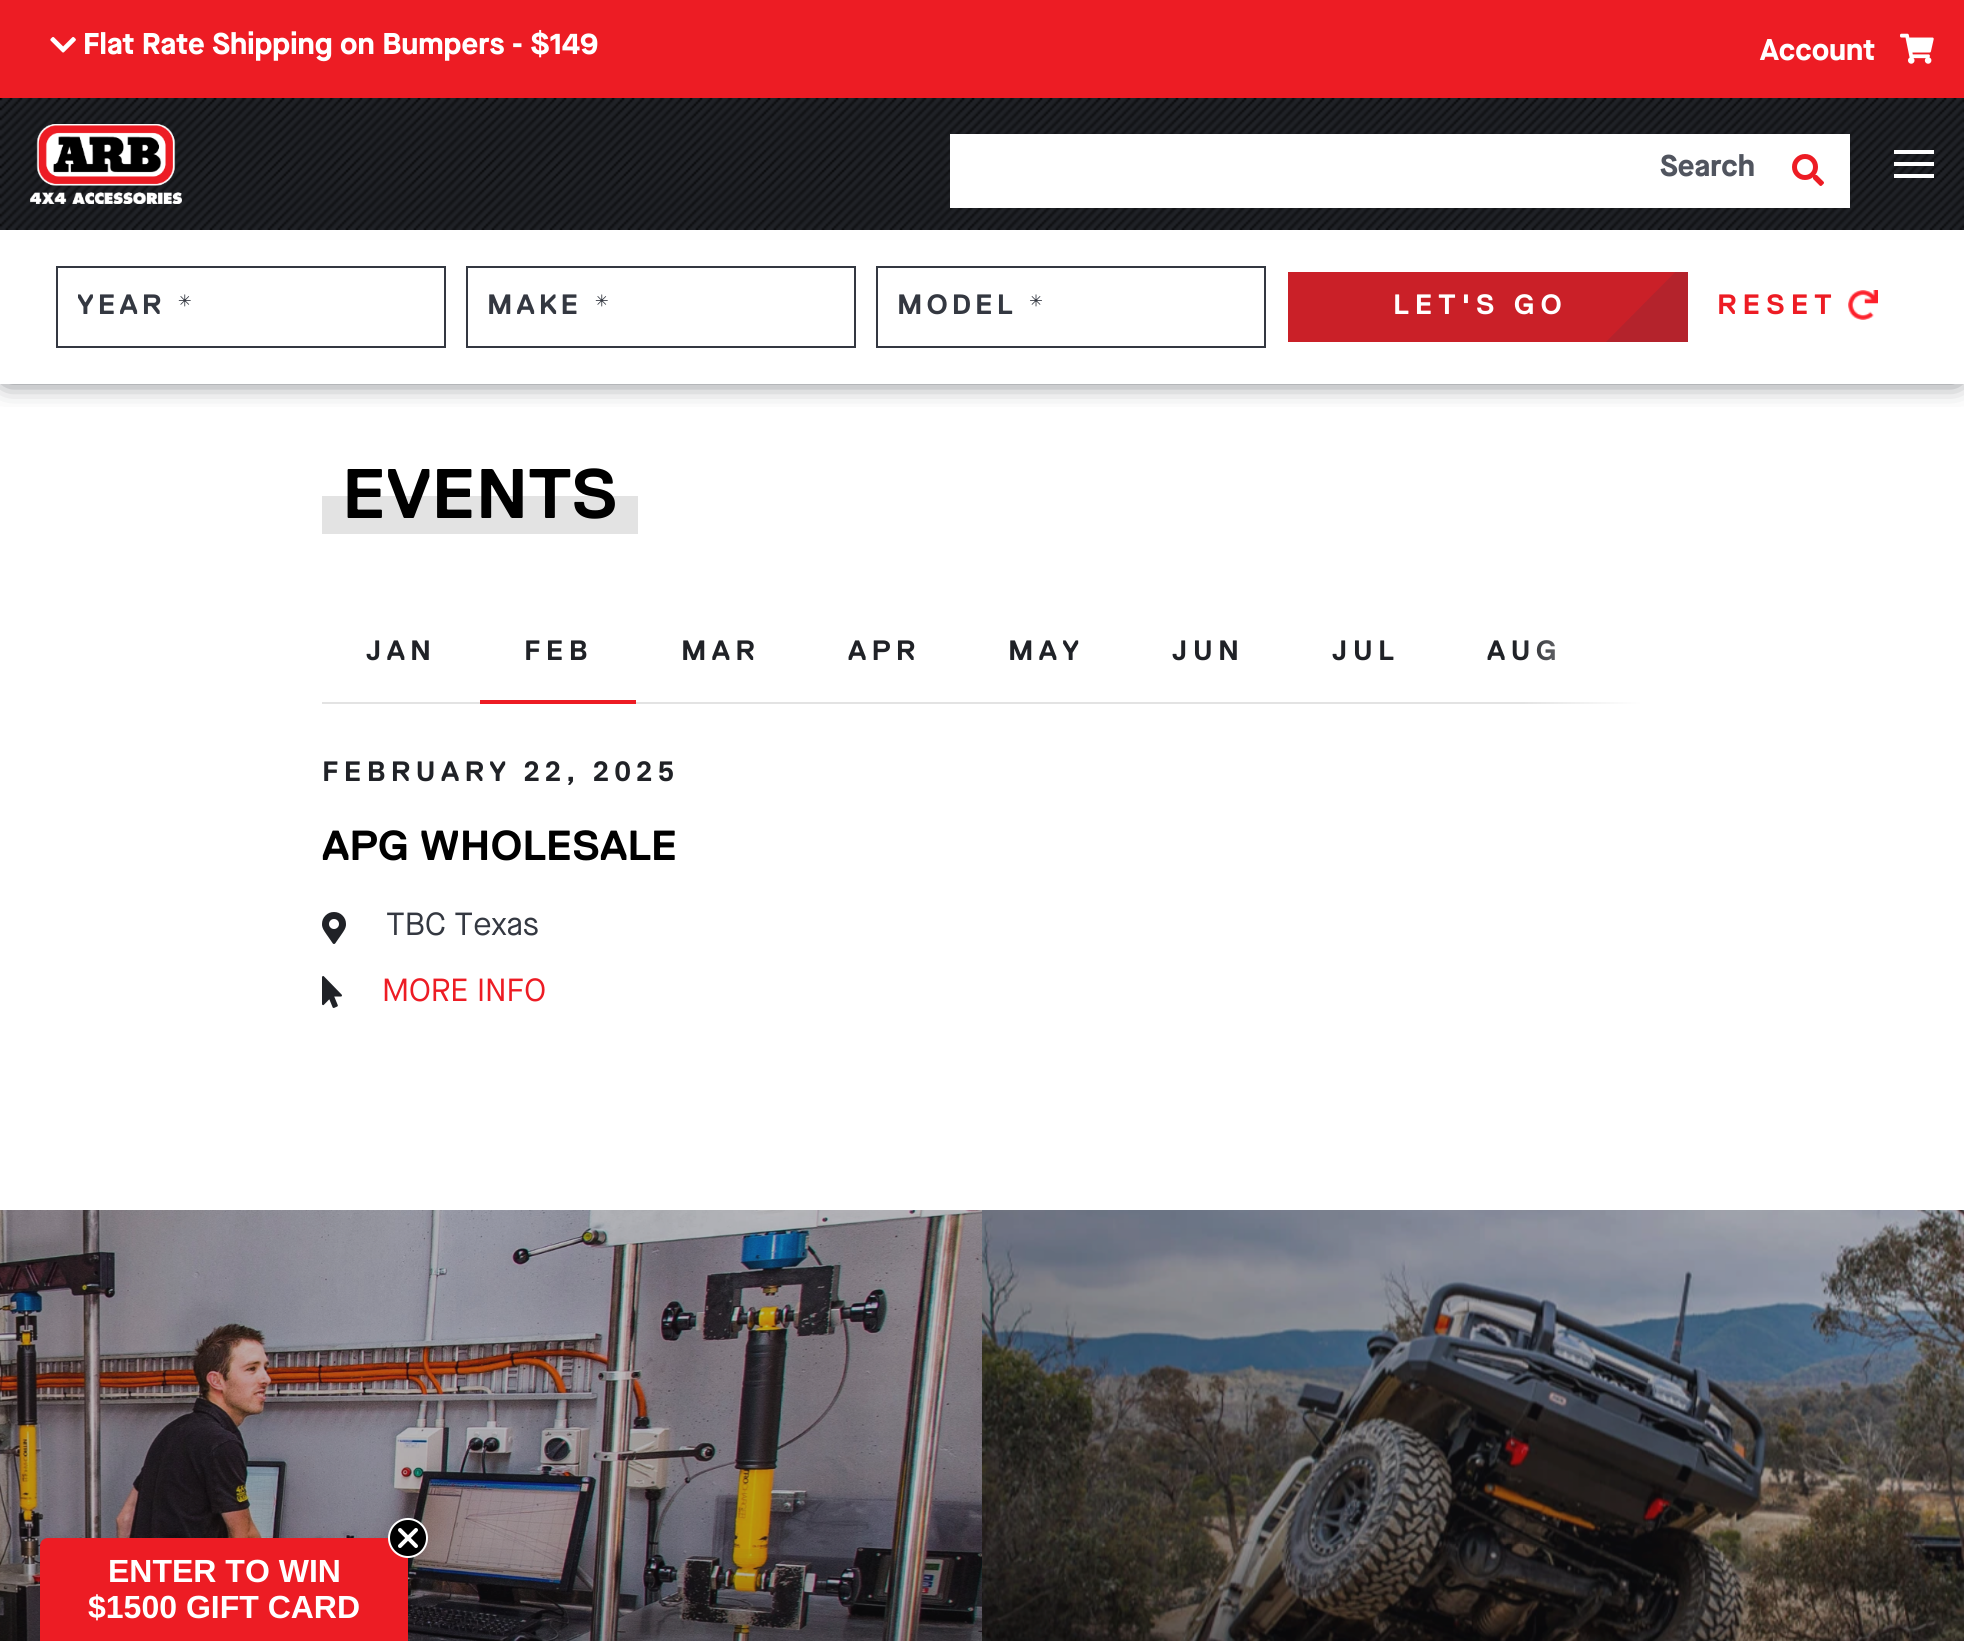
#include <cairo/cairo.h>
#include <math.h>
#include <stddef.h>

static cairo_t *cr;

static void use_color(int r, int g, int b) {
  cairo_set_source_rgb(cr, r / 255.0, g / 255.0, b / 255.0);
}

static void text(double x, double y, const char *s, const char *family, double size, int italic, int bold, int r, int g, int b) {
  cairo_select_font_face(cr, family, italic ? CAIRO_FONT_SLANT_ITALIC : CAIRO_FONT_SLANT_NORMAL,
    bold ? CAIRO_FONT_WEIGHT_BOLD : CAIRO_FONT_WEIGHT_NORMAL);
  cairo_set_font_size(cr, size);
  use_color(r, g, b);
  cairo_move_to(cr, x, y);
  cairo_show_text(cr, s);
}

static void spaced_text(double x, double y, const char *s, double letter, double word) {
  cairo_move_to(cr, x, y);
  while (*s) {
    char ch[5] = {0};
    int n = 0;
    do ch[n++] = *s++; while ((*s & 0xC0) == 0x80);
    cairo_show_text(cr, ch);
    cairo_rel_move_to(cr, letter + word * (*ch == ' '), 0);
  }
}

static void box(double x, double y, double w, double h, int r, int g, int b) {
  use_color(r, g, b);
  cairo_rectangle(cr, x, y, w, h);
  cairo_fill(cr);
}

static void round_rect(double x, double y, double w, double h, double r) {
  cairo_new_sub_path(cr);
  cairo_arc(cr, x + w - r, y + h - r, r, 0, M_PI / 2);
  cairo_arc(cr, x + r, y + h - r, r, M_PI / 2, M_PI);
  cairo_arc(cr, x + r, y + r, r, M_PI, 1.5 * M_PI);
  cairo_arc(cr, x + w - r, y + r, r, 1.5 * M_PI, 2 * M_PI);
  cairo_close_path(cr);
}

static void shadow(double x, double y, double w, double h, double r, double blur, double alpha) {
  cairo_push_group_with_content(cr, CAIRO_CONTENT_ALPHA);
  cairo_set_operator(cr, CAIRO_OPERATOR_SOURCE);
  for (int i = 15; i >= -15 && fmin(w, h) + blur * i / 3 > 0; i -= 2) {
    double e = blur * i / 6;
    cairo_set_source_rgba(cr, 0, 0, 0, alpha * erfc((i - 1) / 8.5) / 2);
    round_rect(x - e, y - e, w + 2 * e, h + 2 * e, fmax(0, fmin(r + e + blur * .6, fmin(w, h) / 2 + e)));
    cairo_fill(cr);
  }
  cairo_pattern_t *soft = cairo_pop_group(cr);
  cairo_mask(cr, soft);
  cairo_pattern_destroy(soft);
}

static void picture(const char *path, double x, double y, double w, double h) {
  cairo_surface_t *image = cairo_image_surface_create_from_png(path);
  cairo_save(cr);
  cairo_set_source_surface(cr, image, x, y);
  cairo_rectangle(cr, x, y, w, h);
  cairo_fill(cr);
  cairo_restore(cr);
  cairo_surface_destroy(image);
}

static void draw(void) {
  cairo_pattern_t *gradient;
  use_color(255, 255, 255);
  cairo_paint(cr);
  box(0, 0, 1964, 98, 237, 28, 36);
  picture("img_01.png", 50, 37, 26, 16);
  picture("img_02.png", 1900, 33, 34, 31);
  cairo_save(cr);
  cairo_rectangle(cr, 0, 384, 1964, 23);
  cairo_clip(cr);
  use_color(52, 56, 65);
  shadow(6, 236, 1952, 142, 0, 14, 1);
  cairo_restore(cr);
  box(0, 98, 1964, 132, 32, 34, 39);
  picture("img_03.png", 0, 98, 1964, 132);
  picture("img_04.png", 30, 124, 152, 80);
  box(950, 134, 900, 74, 255, 255, 255);
  picture("img_05.png", 1792, 154, 32, 32);
  box(1894, 162, 40, 4, 255, 255, 255);
  box(1894, 150, 40, 4, 255, 255, 255);
  box(1894, 174, 40, 4, 255, 255, 255);
  cairo_rectangle(cr, 57, 267, 388, 80);
  use_color(52, 56, 65);
  cairo_stroke(cr);
  cairo_rectangle(cr, 467, 267, 388, 80);
  cairo_stroke(cr);
  cairo_rectangle(cr, 877, 267, 388, 80);
  cairo_stroke(cr);
  box(1288, 272, 388, 70, 202, 32, 40);
  cairo_save(cr);
  cairo_rectangle(cr, 1288, 272, 400, 70);
  cairo_clip(cr);
  use_color(180, 35, 44);
  cairo_new_path(cr);
  cairo_move_to(cr, 1706, 241);
  cairo_line_to(cr, 1873, 408);
  cairo_line_to(cr, 1760, 522);
  cairo_line_to(cr, 1593, 355);
  cairo_close_path(cr);
  cairo_fill(cr);
  cairo_restore(cr);
  picture("img_06.png", 1848, 290, 30, 30);
  box(322, 496, 316, 38, 227, 227, 227);
  box(322, 702, 1320, 2, 227, 227, 227);
  box(480, 700, 156, 4, 237, 28, 36);
  picture("img_07.png", 322, 912, 24, 32);
  picture("img_08.png", 322, 976, 20, 32);
  box(0, 1210, 1964, 431, 32, 34, 39);
  picture("img_09.png", 0, 1210, 982, 431);
  gradient = cairo_pattern_create_linear(491, 1536, 491, 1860);
  cairo_pattern_add_color_stop_rgba(gradient, 0, 0, 0, 0, 0);
  cairo_pattern_add_color_stop_rgba(gradient, 1, 0, 0, 0, 0.55);
  cairo_set_source(cr, gradient);
  cairo_pattern_destroy(gradient);
  cairo_rectangle(cr, 0, 1549, 982, 92);
  cairo_fill(cr);
  picture("img_10.png", 982, 1210, 982, 431);
  gradient = cairo_pattern_create_linear(1473, 1536, 1473, 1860);
  cairo_pattern_add_color_stop_rgba(gradient, 0, 0, 0, 0, 0);
  cairo_pattern_add_color_stop_rgba(gradient, 1, 0, 0, 0, 0.55);
  cairo_set_source(cr, gradient);
  cairo_pattern_destroy(gradient);
  cairo_rectangle(cr, 982, 1549, 982, 92);
  cairo_fill(cr);
  use_color(237, 28, 36);
  cairo_new_path(cr);
  cairo_move_to(cr, 48, 1538);
  cairo_line_to(cr, 400, 1538);
  cairo_curve_to(cr, 404.5, 1538, 408, 1541.5, 408, 1546);
  cairo_line_to(cr, 408, 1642);
  cairo_line_to(cr, 40, 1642);
  cairo_line_to(cr, 40, 1546);
  cairo_curve_to(cr, 40, 1541.5, 43.5, 1538, 48, 1538);
  cairo_close_path(cr);
  cairo_fill(cr);
  use_color(0, 0, 0);
  cairo_arc(cr, 408, 1538, 19, 0, 2 * M_PI);
  cairo_fill_preserve(cr);
  use_color(255, 255, 255);
  cairo_stroke(cr);
  cairo_new_path(cr);
  cairo_move_to(cr, 400, 1530);
  cairo_line_to(cr, 416, 1546);
  cairo_move_to(cr, 400, 1546);
  cairo_line_to(cr, 416, 1530);
  cairo_close_path(cr);
  cairo_set_line_width(cr, 4);
  cairo_set_line_cap(cr, CAIRO_LINE_CAP_ROUND);
  cairo_set_line_join(cr, CAIRO_LINE_JOIN_ROUND);
  cairo_stroke(cr);
  text(83, 54, "Flat Rate Shipping on Bumpers - $149", "Maison Neue", 30, 0, 1, 255, 255, 255);
  text(1760, 60, "Account", "Maison Neue", 30, 0, 1, 255, 255, 255);
  text(1660, 176, "Search", "Maison Neue", 30, 0, 1, 81, 85, 95);
  cairo_save(cr);
  cairo_rectangle(cr, 78, 286, 350, 42);
  cairo_clip(cr);
  cairo_select_font_face(cr, "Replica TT", CAIRO_FONT_SLANT_NORMAL, CAIRO_FONT_WEIGHT_BOLD);
  cairo_set_font_size(cr, 28);
  use_color(52, 56, 65);
  spaced_text(77, 314, "YEAR *", 4, 0);
  cairo_restore(cr);
  cairo_select_font_face(cr, "Replica TT", CAIRO_FONT_SLANT_NORMAL, CAIRO_FONT_WEIGHT_BOLD);
  cairo_set_font_size(cr, 28);
  use_color(52, 56, 65);
  spaced_text(487, 314, "MAKE *", 4, 0);
  spaced_text(897, 314, "MODEL *", 4, 0);
  use_color(255, 255, 255);
  spaced_text(1393, 314, "LET'S GO", 6, 0);
  use_color(237, 28, 36);
  spaced_text(1717, 314, "RESET", 6, 0);
  text(342, 518, "EVENTS", "Replica TT", 70, 0, 1, 0, 0, 0);
  cairo_set_font_size(cr, 28);
  use_color(32, 34, 39);
  spaced_text(366, 660, "JAN", 5.25, 0);
  spaced_text(524, 660, "FEB", 5.25, 0);
  spaced_text(681, 660, "MAR", 5.25, 0);
  spaced_text(848, 660, "APR", 5.25, 0);
  spaced_text(1008, 660, "MAY", 5.25, 0);
  spaced_text(1172, 660, "JUN", 5.25, 0);
  spaced_text(1332, 660, "JUL", 5.25, 0);
  spaced_text(1487, 660, "AUG", 5.25, 0);
  gradient = cairo_pattern_create_linear(1522, 648, 1642, 648);
  cairo_pattern_add_color_stop_rgba(gradient, 0, 1, 1, 1, 0);
  cairo_pattern_add_color_stop_rgba(gradient, 1, 1, 1, 1, 1);
  cairo_set_source(cr, gradient);
  cairo_pattern_destroy(gradient);
  cairo_rectangle(cr, 1525, 640, 117, 64);
  cairo_fill(cr);
  use_color(32, 34, 39);
  spaced_text(322, 781, "FEBRUARY 22, 2025", 5.25, 0);
  text(322, 860, "APG WHOLESALE", "Replica TT", 42, 0, 1, 0, 0, 0);
  text(386, 935, "TBC Texas", "Maison Neue", 32, 0, 0, 52, 56, 65);
  text(382, 1001, "MORE INFO", "Maison Neue", 32, 0, 0, 237, 28, 36);
  text(108, 1582, "ENTER TO WIN", "Liberation Sans", 32, 0, 1, 255, 255, 255);
  text(88, 1618, "$1500 GIFT CARD", "Liberation Sans", 32, 0, 1, 255, 255, 255);
}

int main(void) {
  cairo_surface_t *surface = cairo_image_surface_create(CAIRO_FORMAT_RGB24, 1964, 1641);
  cr = cairo_create(surface);
  cairo_font_options_t *options = cairo_font_options_create();
  cairo_font_options_set_hint_metrics(options, CAIRO_HINT_METRICS_OFF);
  cairo_font_options_set_hint_style(options, CAIRO_HINT_STYLE_NONE);
  cairo_set_font_options(cr, options);
  cairo_set_miter_limit(cr, 4);
  draw();
  cairo_surface_write_to_png(surface, "out.png");
  cairo_font_options_destroy(options);
  cairo_destroy(cr);
  cairo_surface_destroy(surface);
  return 0;
}
